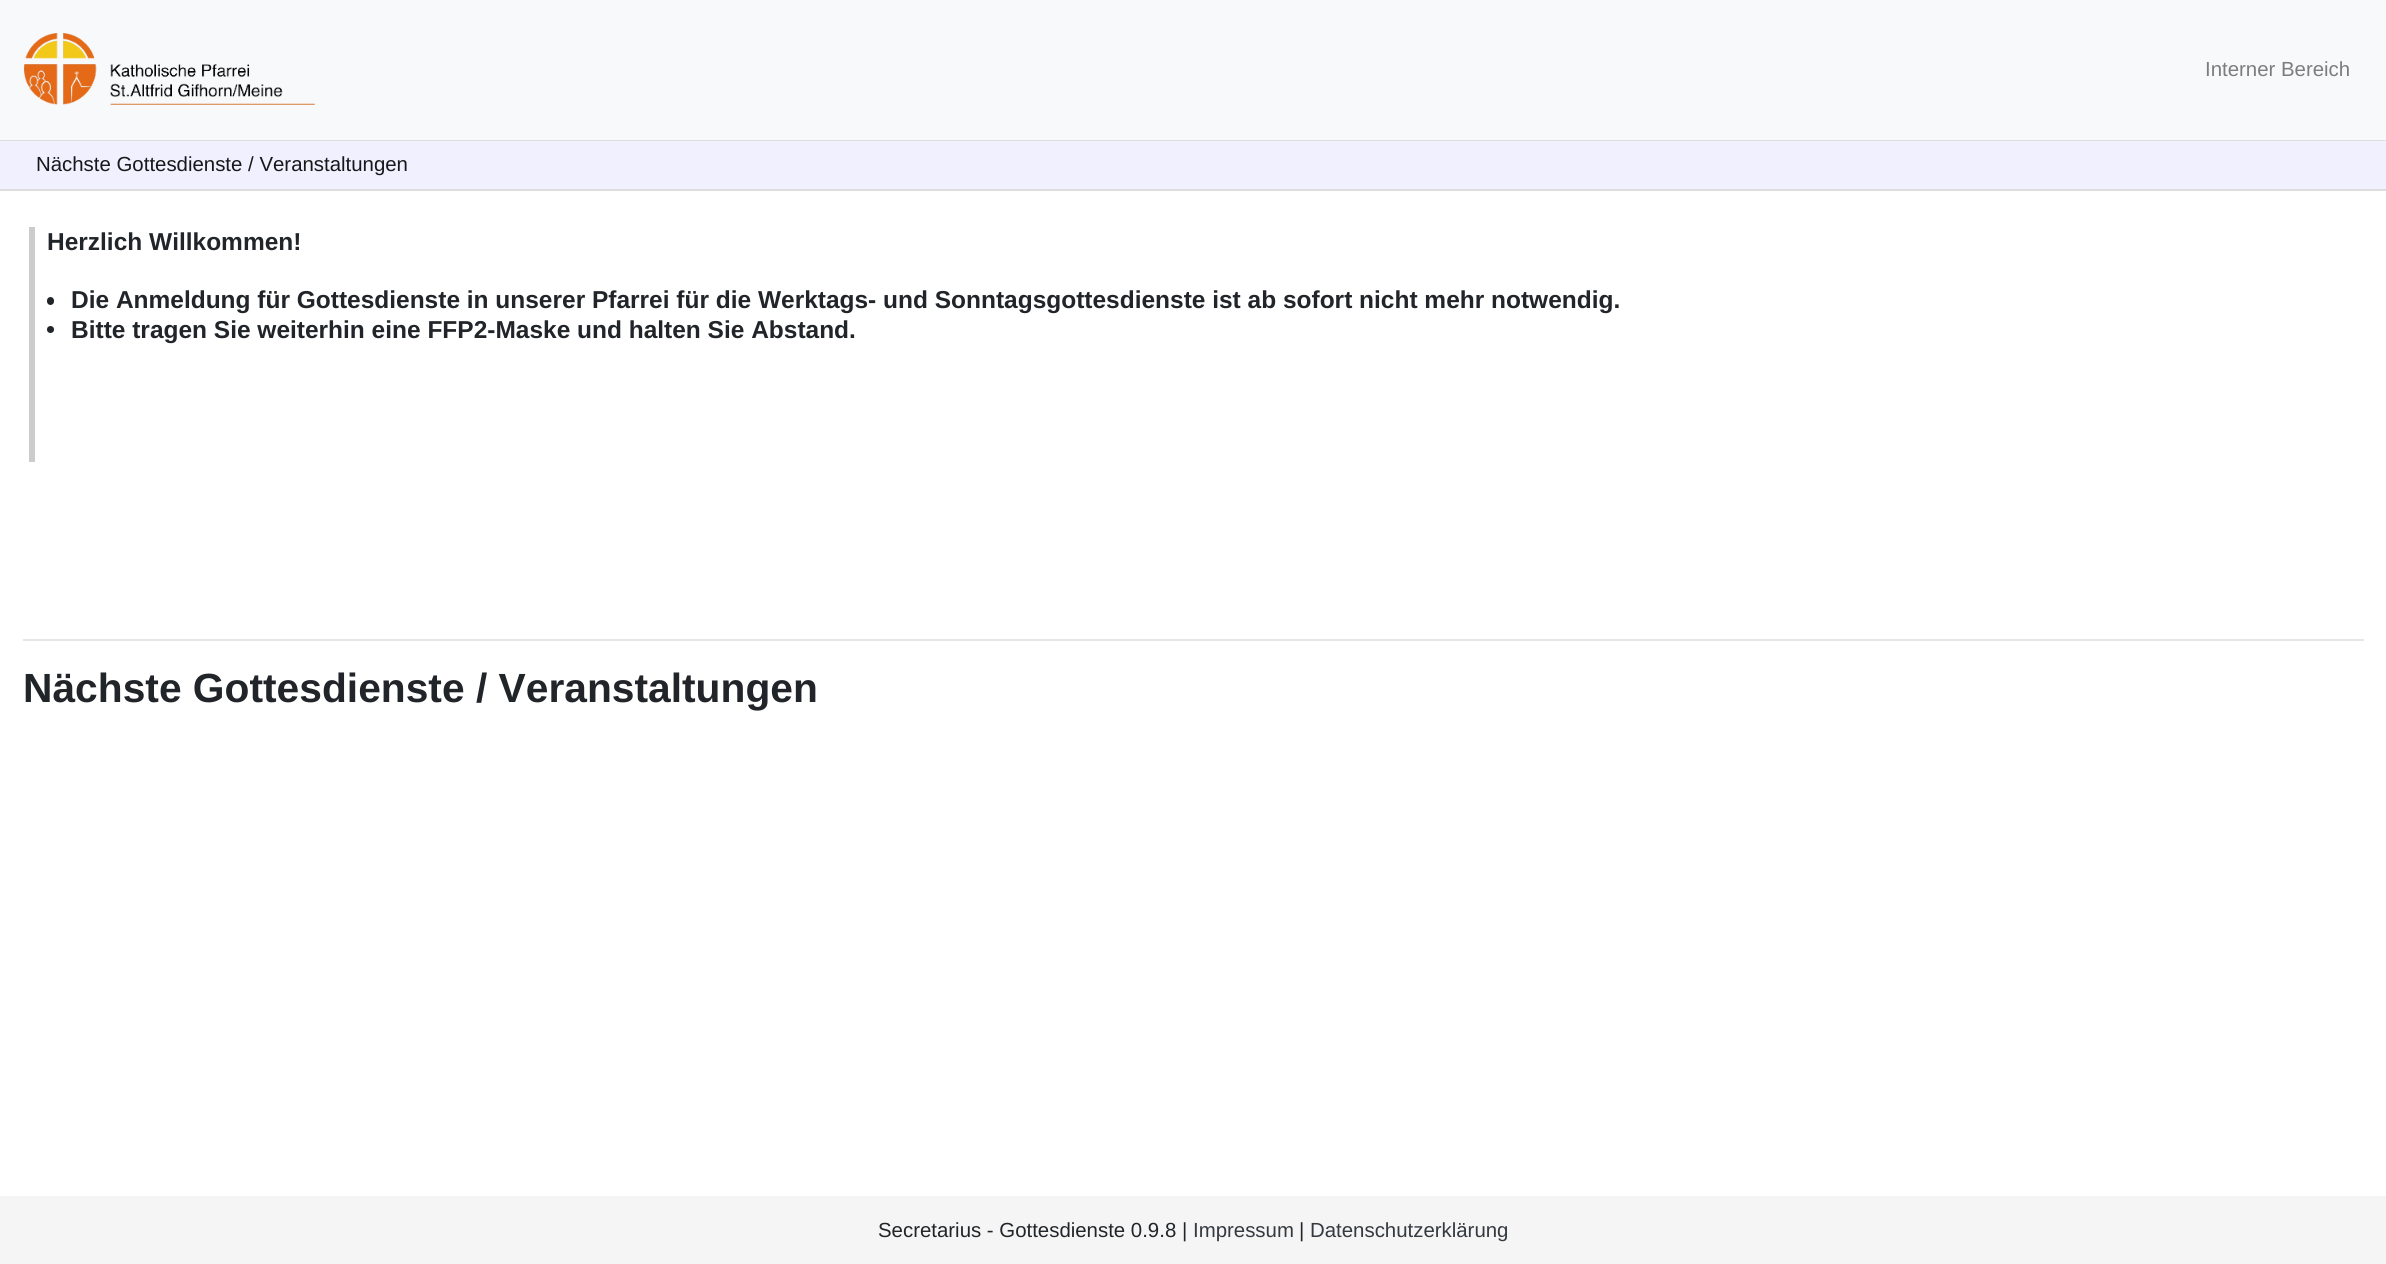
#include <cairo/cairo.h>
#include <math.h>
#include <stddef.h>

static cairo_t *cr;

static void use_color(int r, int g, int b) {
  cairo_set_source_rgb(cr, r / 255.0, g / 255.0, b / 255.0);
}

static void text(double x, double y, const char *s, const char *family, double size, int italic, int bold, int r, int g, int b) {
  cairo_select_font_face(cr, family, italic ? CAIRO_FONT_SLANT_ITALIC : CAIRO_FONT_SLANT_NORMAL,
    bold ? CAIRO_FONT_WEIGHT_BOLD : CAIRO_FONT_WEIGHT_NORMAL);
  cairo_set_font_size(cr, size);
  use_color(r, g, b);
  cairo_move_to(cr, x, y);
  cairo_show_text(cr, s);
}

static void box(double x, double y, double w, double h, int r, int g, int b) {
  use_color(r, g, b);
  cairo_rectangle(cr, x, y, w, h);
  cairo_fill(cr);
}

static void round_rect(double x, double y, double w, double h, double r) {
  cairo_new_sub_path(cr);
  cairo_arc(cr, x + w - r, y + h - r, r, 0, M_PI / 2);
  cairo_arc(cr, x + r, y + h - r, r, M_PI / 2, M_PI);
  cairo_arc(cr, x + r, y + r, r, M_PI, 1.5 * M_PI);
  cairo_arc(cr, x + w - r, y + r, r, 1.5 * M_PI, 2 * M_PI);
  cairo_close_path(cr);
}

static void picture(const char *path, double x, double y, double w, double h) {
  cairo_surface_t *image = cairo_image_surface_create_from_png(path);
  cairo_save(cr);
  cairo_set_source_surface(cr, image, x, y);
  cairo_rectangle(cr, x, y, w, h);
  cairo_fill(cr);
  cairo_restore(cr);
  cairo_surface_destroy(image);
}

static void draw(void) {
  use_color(255, 255, 255);
  cairo_paint(cr);
  box(0, 0, 2386, 140, 248, 249, 250);
  box(0, 140, 2386, 1, 221, 221, 221);
  picture("img_01.png", 24, 33, 291, 72);
  box(0, 141, 2386, 48, 240, 240, 255);
  box(0, 189, 2386, 2, 221, 221, 221);
  box(29, 227, 6, 235, 204, 204, 204);
  use_color(33, 37, 41);
  round_rect(47, 297, 7, 8, 3.5);
  cairo_fill(cr);
  cairo_arc(cr, 50.5, 329.5, 3.5, 0, 2 * M_PI);
  cairo_fill(cr);
  box(23, 639, 2341, 2, 230, 230, 230);
  box(0, 1196, 2386, 68, 245, 245, 245);
  text(2205, 76, "Interner Bereich", "Liberation Sans", 20.4, 0, 0, 124, 125, 125);
  text(36, 171, "Nächste Gottesdienste / Veranstaltungen", "Liberation Sans", 20.4, 0, 0, 24, 24, 26);
  text(47, 250, "Herzlich Willkommen!", "Liberation Sans", 24.48, 0, 1, 33, 37, 41);
  text(71, 308, "Die Anmeldung für Gottesdienste in unserer Pfarrei für die Werktags- und Sonntagsgottesdienste ist ab sofort nicht mehr notwendig.", "Liberation Sans", 24.48, 0, 1, 33, 37, 41);
  text(71, 338, "Bitte tragen Sie weiterhin eine FFP2-Maske und halten Sie Abstand.", "Liberation Sans", 24.48, 0, 1, 33, 37, 41);
  text(23, 702, "Nächste Gottesdienste / Veranstaltungen", "Liberation Sans", 40.75, 0, 1, 33, 37, 41);
  text(878, 1237, "Secretarius - Gottesdienste 0.9.8 |", "Liberation Sans", 20.4, 0, 0, 33, 37, 41);
  text(1193, 1237, "Impressum", "Liberation Sans", 20.4, 0, 0, 52, 58, 64);
  text(1299, 1237, "|", "Liberation Sans", 20.4, 0, 0, 33, 37, 41);
  text(1310, 1237, "Datenschutzerklärung", "Liberation Sans", 20.4, 0, 0, 52, 58, 64);
}

int main(void) {
  cairo_surface_t *surface = cairo_image_surface_create(CAIRO_FORMAT_RGB24, 2386, 1264);
  cr = cairo_create(surface);
  cairo_font_options_t *options = cairo_font_options_create();
  cairo_font_options_set_hint_metrics(options, CAIRO_HINT_METRICS_OFF);
  cairo_font_options_set_hint_style(options, CAIRO_HINT_STYLE_NONE);
  cairo_set_font_options(cr, options);
  cairo_set_miter_limit(cr, 4);
  draw();
  cairo_surface_write_to_png(surface, "out.png");
  cairo_font_options_destroy(options);
  cairo_destroy(cr);
  cairo_surface_destroy(surface);
  return 0;
}
